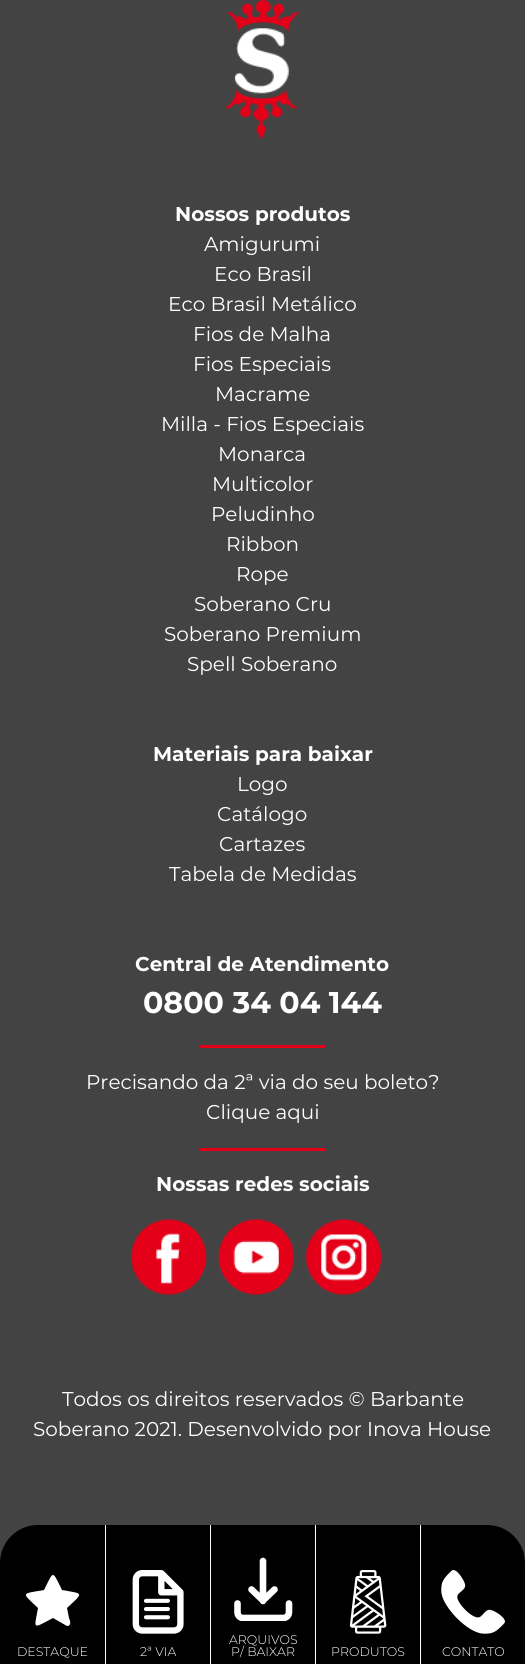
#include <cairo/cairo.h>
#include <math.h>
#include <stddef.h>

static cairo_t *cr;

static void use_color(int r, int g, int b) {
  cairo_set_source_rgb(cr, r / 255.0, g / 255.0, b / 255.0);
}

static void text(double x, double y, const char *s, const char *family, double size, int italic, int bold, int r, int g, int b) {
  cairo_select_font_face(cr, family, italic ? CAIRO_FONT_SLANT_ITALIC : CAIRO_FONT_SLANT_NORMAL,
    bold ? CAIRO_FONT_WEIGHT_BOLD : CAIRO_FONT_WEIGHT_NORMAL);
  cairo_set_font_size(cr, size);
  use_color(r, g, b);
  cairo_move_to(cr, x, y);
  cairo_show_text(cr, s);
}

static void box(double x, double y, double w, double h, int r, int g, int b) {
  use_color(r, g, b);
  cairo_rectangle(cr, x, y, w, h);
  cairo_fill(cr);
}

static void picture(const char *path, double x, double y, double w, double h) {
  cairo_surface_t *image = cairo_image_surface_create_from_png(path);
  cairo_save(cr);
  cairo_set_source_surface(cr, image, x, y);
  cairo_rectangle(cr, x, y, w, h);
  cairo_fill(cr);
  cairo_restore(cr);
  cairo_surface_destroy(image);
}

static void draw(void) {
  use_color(67, 67, 67);
  cairo_paint(cr);
  picture("img_01.png", 225, 0, 75, 140);
  box(200, 1045, 125, 3, 229, 0, 25);
  box(200, 1148, 125, 3, 229, 0, 25);
  picture("img_02.png", 131, 1219, 76, 76);
  picture("img_03.png", 218, 1219, 76, 76);
  picture("img_04.png", 306, 1219, 76, 76);
  use_color(0, 0, 0);
  cairo_new_path(cr);
  cairo_move_to(cr, 38, 1525);
  cairo_line_to(cr, 105, 1525);
  cairo_line_to(cr, 105, 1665);
  cairo_line_to(cr, 0, 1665);
  cairo_line_to(cr, 0, 1563);
  cairo_curve_to(cr, 0, 1542, 17, 1525, 38, 1525);
  cairo_close_path(cr);
  cairo_fill(cr);
  use_color(255, 255, 255);
  cairo_new_path(cr);
  cairo_move_to(cr, 67, 1626);
  cairo_line_to(cr, 53, 1618);
  cairo_curve_to(cr, 32, 1629, 34, 1630, 38, 1608);
  cairo_curve_to(cr, 21, 1592, 21, 1594, 44, 1590);
  cairo_curve_to(cr, 54, 1570, 52, 1570, 62, 1590);
  cairo_curve_to(cr, 84, 1594, 84, 1592, 67, 1608);
  cairo_line_to(cr, 69, 1618);
  cairo_curve_to(cr, 70, 1620, 72, 1626, 67, 1626);
  cairo_close_path(cr);
  cairo_fill(cr);
  box(106, 1525, 104, 139, 0, 0, 0);
  box(105, 1525, 1, 139, 255, 255, 255);
  picture("img_05.png", 132, 1570, 52, 64);
  box(211, 1525, 104, 139, 0, 0, 0);
  box(210, 1525, 1, 139, 255, 255, 255);
  cairo_save(cr);
  cairo_rectangle(cr, 224, 1558, 79, 63);
  cairo_clip(cr);
  cairo_new_path(cr);
  cairo_move_to(cr, 237.5, 1603.5);
  cairo_line_to(cr, 237.5, 1612);
  cairo_curve_to(cr, 237.5, 1615.5, 240, 1618, 243, 1618);
  cairo_line_to(cr, 283, 1618);
  cairo_curve_to(cr, 286.5, 1618, 289, 1615.5, 289, 1612);
  cairo_line_to(cr, 289, 1603.5);
  cairo_set_line_width(cr, 6.6);
  cairo_set_line_cap(cr, CAIRO_LINE_CAP_ROUND);
  cairo_set_line_join(cr, CAIRO_LINE_JOIN_ROUND);
  cairo_stroke(cr);
  cairo_restore(cr);
  cairo_new_path(cr);
  cairo_move_to(cr, 251.5, 1589.5);
  cairo_line_to(cr, 263, 1600.5);
  cairo_line_to(cr, 274.5, 1589.5);
  cairo_move_to(cr, 263, 1561);
  cairo_line_to(cr, 263, 1601);
  cairo_set_line_width(cr, 6.6);
  cairo_set_line_cap(cr, CAIRO_LINE_CAP_ROUND);
  cairo_set_line_join(cr, CAIRO_LINE_JOIN_ROUND);
  cairo_stroke(cr);
  box(316, 1525, 104, 139, 0, 0, 0);
  box(315, 1525, 1, 139, 255, 255, 255);
  picture("img_06.png", 349, 1570, 38, 64);
  use_color(0, 0, 0);
  cairo_new_path(cr);
  cairo_move_to(cr, 420, 1525);
  cairo_line_to(cr, 487, 1525);
  cairo_curve_to(cr, 508, 1525, 525, 1542, 525, 1563);
  cairo_line_to(cr, 525, 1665);
  cairo_line_to(cr, 420, 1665);
  cairo_close_path(cr);
  cairo_fill(cr);
  box(420, 1525, 1, 139, 255, 255, 255);
  picture("img_07.png", 441, 1570, 64, 64);
  text(175, 221, "Nossos produtos", "Montserrat", 20, 0, 1, 255, 255, 255);
  text(204, 251, "Amigurumi", "Montserrat", 20, 0, 0, 255, 255, 255);
  text(214, 281, "Eco Brasil", "Montserrat", 20, 0, 0, 255, 255, 255);
  text(168, 311, "Eco Brasil Metálico", "Montserrat", 20, 0, 0, 255, 255, 255);
  text(193, 341, "Fios de Malha", "Montserrat", 20, 0, 0, 255, 255, 255);
  text(193, 371, "Fios Especiais", "Montserrat", 20, 0, 0, 255, 255, 255);
  text(215, 401, "Macrame", "Montserrat", 20, 0, 0, 255, 255, 255);
  text(161, 431, "Milla - Fios Especiais", "Montserrat", 20, 0, 0, 255, 255, 255);
  text(218, 461, "Monarca", "Montserrat", 20, 0, 0, 255, 255, 255);
  text(212, 491, "Multicolor", "Montserrat", 20, 0, 0, 255, 255, 255);
  text(211, 521, "Peludinho", "Montserrat", 20, 0, 0, 255, 255, 255);
  text(226, 551, "Ribbon", "Montserrat", 20, 0, 0, 255, 255, 255);
  text(236, 581, "Rope", "Montserrat", 20, 0, 0, 255, 255, 255);
  text(194, 611, "Soberano Cru", "Montserrat", 20, 0, 0, 255, 255, 255);
  text(164, 641, "Soberano Premium", "Montserrat", 20, 0, 0, 255, 255, 255);
  text(187, 671, "Spell Soberano", "Montserrat", 20, 0, 0, 255, 255, 255);
  text(153, 761, "Materiais para baixar", "Montserrat", 20, 0, 1, 255, 255, 255);
  text(237, 791, "Logo", "Montserrat", 20, 0, 0, 255, 255, 255);
  text(217, 821, "Catálogo", "Montserrat", 20, 0, 0, 255, 255, 255);
  text(219, 851, "Cartazes", "Montserrat", 20, 0, 0, 255, 255, 255);
  text(169, 881, "Tabela de Medidas", "Montserrat", 20, 0, 0, 255, 255, 255);
  text(135, 971, "Central de Atendimento", "Montserrat", 20, 0, 1, 255, 255, 255);
  text(143, 1013, "0800 34 04 144", "Montserrat", 30, 0, 1, 255, 255, 255);
  text(86, 1089, "Precisando da 2ª via do seu boleto?", "Montserrat", 20, 0, 0, 255, 255, 255);
  text(206, 1119, "Clique aqui", "Montserrat", 20, 0, 0, 255, 255, 255);
  text(156, 1191, "Nossas redes sociais", "Montserrat", 20, 0, 1, 255, 255, 255);
  text(62, 1406, "Todos os direitos reservados © Barbante", "Montserrat", 20, 0, 0, 255, 255, 255);
  text(33, 1436, "Soberano 2021. Desenvolvido por Inova House", "Montserrat", 20, 0, 0, 255, 255, 255);
  text(17, 1656, "DESTAQUE", "Montserrat Light", 12.5, 0, 0, 255, 255, 255);
  text(140, 1656, "2ª VIA", "Montserrat Light", 12.5, 0, 0, 255, 255, 255);
  text(229, 1644, "ARQUIVOS", "Montserrat Light", 12.5, 0, 0, 255, 255, 255);
  text(231, 1656, "P/ BAIXAR", "Montserrat Light", 12.5, 0, 0, 255, 255, 255);
  text(331, 1656, "PRODUTOS", "Montserrat Light", 12.5, 0, 0, 255, 255, 255);
  text(442, 1656, "CONTATO", "Montserrat Light", 12.5, 0, 0, 255, 255, 255);
}

int main(void) {
  cairo_surface_t *surface = cairo_image_surface_create(CAIRO_FORMAT_RGB24, 525, 1664);
  cr = cairo_create(surface);
  cairo_font_options_t *options = cairo_font_options_create();
  cairo_font_options_set_hint_metrics(options, CAIRO_HINT_METRICS_OFF);
  cairo_font_options_set_hint_style(options, CAIRO_HINT_STYLE_NONE);
  cairo_set_font_options(cr, options);
  cairo_set_miter_limit(cr, 4);
  draw();
  cairo_surface_write_to_png(surface, "out.png");
  cairo_font_options_destroy(options);
  cairo_destroy(cr);
  cairo_surface_destroy(surface);
  return 0;
}
